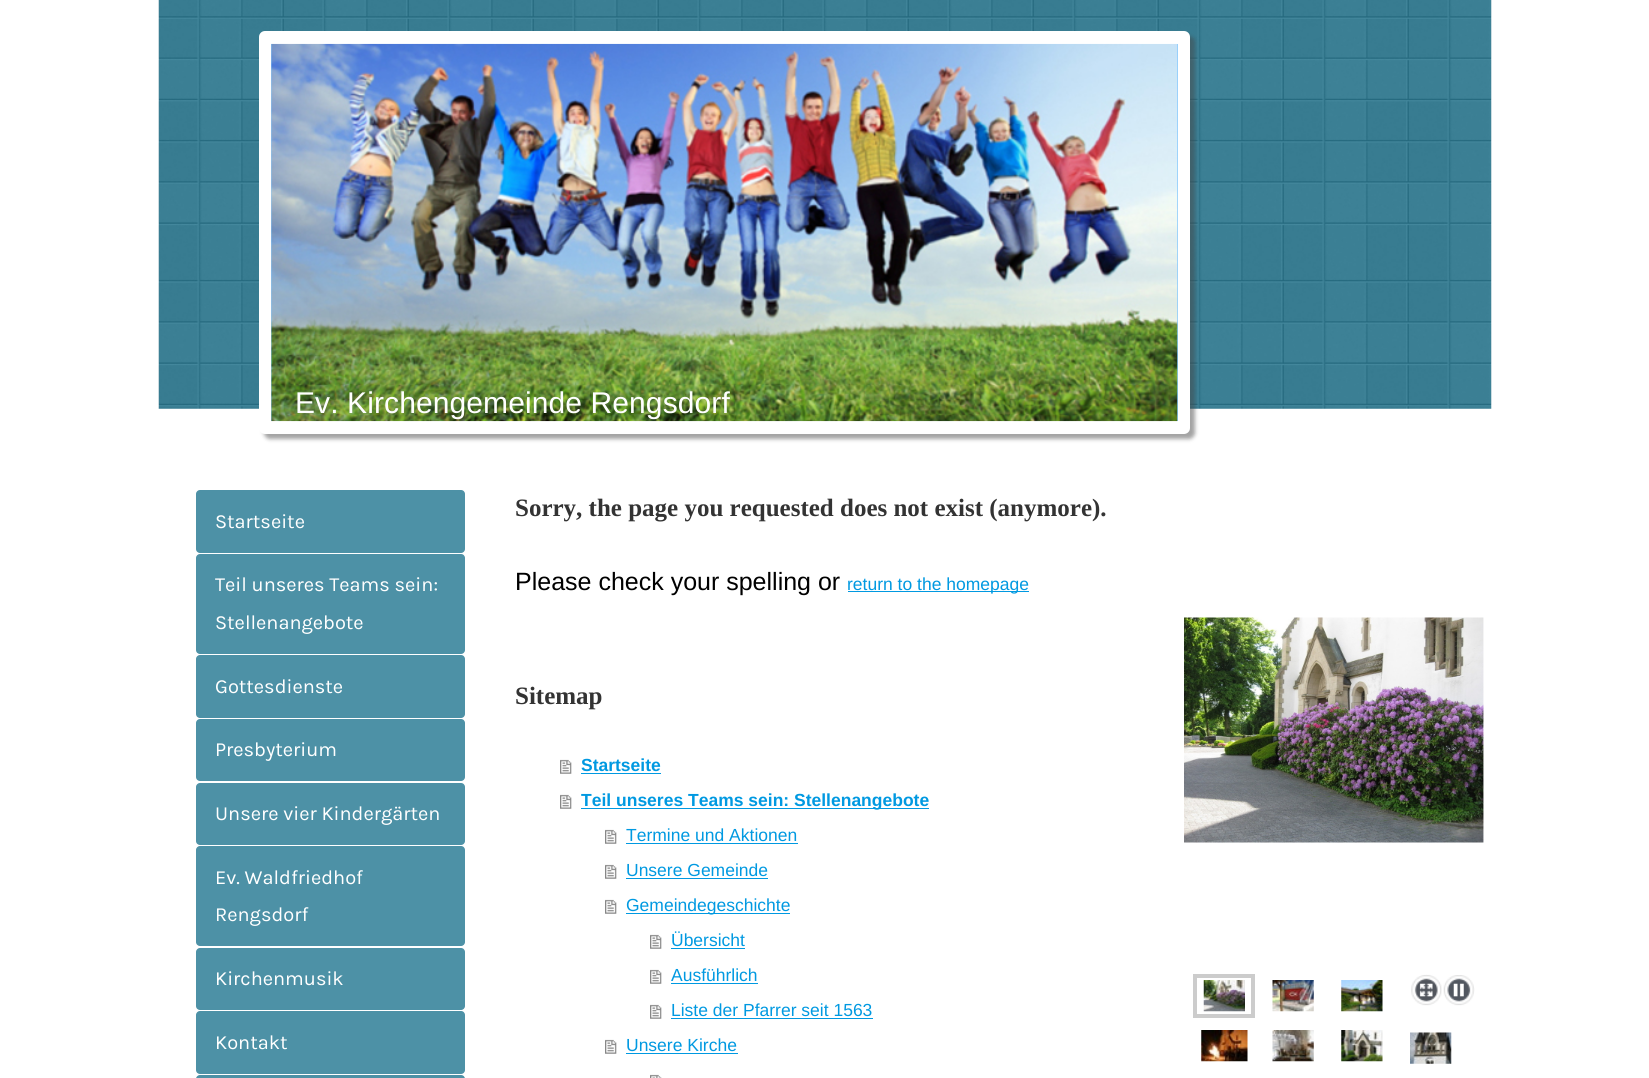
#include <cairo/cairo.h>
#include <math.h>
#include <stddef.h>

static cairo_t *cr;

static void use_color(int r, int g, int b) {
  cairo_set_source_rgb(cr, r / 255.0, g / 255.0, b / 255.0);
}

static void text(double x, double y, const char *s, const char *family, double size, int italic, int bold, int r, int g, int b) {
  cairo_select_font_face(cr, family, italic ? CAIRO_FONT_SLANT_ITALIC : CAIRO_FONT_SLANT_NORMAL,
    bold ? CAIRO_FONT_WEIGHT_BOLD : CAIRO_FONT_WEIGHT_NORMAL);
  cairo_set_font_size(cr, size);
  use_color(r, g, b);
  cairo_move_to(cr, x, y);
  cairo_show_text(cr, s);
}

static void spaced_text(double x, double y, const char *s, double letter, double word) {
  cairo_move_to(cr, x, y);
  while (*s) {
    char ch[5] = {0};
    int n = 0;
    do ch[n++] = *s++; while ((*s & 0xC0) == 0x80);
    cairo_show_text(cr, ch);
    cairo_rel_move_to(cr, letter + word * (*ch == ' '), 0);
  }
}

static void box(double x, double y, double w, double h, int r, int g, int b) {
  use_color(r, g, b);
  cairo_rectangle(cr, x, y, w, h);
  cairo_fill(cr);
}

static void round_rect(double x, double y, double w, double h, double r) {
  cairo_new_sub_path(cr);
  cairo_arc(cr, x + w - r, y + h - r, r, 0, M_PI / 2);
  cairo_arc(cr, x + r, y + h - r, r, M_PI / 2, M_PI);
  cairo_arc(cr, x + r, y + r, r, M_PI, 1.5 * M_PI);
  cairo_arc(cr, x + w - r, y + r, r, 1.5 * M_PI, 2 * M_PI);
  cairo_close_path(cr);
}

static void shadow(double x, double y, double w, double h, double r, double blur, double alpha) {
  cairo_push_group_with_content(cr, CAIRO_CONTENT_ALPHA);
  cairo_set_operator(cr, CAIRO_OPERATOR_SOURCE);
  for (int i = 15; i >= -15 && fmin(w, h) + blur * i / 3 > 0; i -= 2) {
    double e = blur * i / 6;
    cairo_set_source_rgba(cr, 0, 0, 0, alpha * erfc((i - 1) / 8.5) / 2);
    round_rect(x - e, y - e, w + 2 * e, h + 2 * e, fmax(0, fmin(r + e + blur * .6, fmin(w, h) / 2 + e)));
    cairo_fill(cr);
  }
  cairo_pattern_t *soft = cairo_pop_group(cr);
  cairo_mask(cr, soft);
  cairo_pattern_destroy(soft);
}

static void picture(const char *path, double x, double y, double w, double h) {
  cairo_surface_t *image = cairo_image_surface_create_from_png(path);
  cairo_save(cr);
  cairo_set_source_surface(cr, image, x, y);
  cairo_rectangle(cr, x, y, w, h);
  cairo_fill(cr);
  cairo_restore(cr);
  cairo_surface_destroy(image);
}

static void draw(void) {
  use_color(255, 255, 255);
  cairo_paint(cr);
  picture("img_01.png", 158, 0, 1334, 409);
  use_color(70, 70, 70);
  shadow(264, 36, 931, 403, 6, 2, 0.5);
  use_color(255, 255, 255);
  round_rect(259, 31, 931, 403, 6);
  cairo_fill(cr);
  box(271, 44, 907, 377, 136, 202, 253);
  picture("img_02.png", 271, 43, 907, 379);
  use_color(77, 145, 166);
  round_rect(196, 490, 269, 63, 4);
  cairo_fill(cr);
  round_rect(196, 554, 269, 100, 4);
  cairo_fill(cr);
  round_rect(196, 655, 269, 63, 4);
  cairo_fill(cr);
  round_rect(196, 719, 269, 62, 4);
  cairo_fill(cr);
  round_rect(196, 783, 269, 62, 4);
  cairo_fill(cr);
  round_rect(196, 846, 269, 100, 4);
  cairo_fill(cr);
  round_rect(196, 948, 269, 62, 4);
  cairo_fill(cr);
  round_rect(196, 1011, 269, 63, 4);
  cairo_fill(cr);
  round_rect(196, 1075, 269, 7, 4);
  cairo_fill(cr);
  box(848, 591, 181, 1, 0, 153, 225);
  picture("img_03.png", 560, 759, 12, 15);
  box(581, 773, 80, 1, 0, 153, 225);
  picture("img_03.png", 560, 794, 12, 15);
  box(581, 808, 348, 1, 0, 153, 225);
  picture("img_04.png", 605, 829, 12, 15);
  box(626, 843, 172, 1, 0, 153, 225);
  picture("img_04.png", 605, 864, 12, 15);
  box(626, 878, 142, 1, 0, 153, 225);
  picture("img_04.png", 605, 899, 12, 15);
  box(626, 913, 164, 1, 0, 153, 225);
  picture("img_04.png", 650, 934, 12, 15);
  box(671, 948, 74, 1, 0, 153, 225);
  picture("img_04.png", 650, 969, 12, 15);
  box(671, 983, 87, 1, 0, 153, 225);
  picture("img_04.png", 650, 1004, 12, 15);
  box(671, 1018, 202, 1, 0, 153, 225);
  picture("img_04.png", 605, 1039, 12, 15);
  box(626, 1053, 112, 1, 0, 153, 225);
  picture("img_05.png", 650, 1074, 12, 4);
  picture("img_06.png", 1184, 617, 300, 226);
  cairo_rectangle(cr, 1195, 976, 58, 40);
  use_color(204, 204, 204);
  cairo_set_line_width(cr, 4);
  cairo_stroke(cr);
  picture("img_07.png", 1203, 980, 42, 32);
  picture("img_08.png", 1272, 980, 42, 32);
  picture("img_09.png", 1341, 980, 42, 32);
  picture("img_10.png", 1411, 974, 31, 32);
  picture("img_11.png", 1443, 975, 32, 31);
  picture("img_12.png", 1201, 1030, 47, 32);
  picture("img_13.png", 1272, 1030, 42, 32);
  picture("img_14.png", 1341, 1030, 42, 32);
  picture("img_15.png", 1410, 1032, 42, 32);
  cairo_select_font_face(cr, "Liberation Sans", CAIRO_FONT_SLANT_NORMAL, CAIRO_FONT_WEIGHT_NORMAL);
  cairo_set_font_size(cr, 30);
  use_color(255, 255, 255);
  spaced_text(295, 413, "Ev. Kirchengemeinde Rengsdorf", 0.1, 0);
  text(215, 528, "Startseite", "Karla", 20, 0, 0, 255, 255, 255);
  text(215, 591, "Teil unseres Teams sein:", "Karla", 20, 0, 0, 255, 255, 255);
  text(215, 629, "Stellenangebote", "Karla", 20, 0, 0, 255, 255, 255);
  text(215, 693, "Gottesdienste", "Karla", 20, 0, 0, 255, 255, 255);
  text(215, 756, "Presbyterium", "Karla", 20, 0, 0, 255, 255, 255);
  text(215, 820, "Unsere vier Kindergärten", "Karla", 20, 0, 0, 255, 255, 255);
  text(215, 884, "Ev. Waldfriedhof", "Karla", 20, 0, 0, 255, 255, 255);
  text(215, 921, "Rengsdorf", "Karla", 20, 0, 0, 255, 255, 255);
  text(215, 985, "Kirchenmusik", "Karla", 20, 0, 0, 255, 255, 255);
  text(215, 1049, "Kontakt", "Karla", 20, 0, 0, 255, 255, 255);
  text(515, 516, "Sorry, the page you requested does not exist (anymore).", "Liberation Serif", 25, 0, 1, 51, 51, 51);
  text(515, 590, "Please check your spelling or", "Liberation Sans", 25, 0, 0, 0, 0, 0);
  text(847, 590, "return to the homepage", "Liberation Sans", 17.5, 0, 0, 0, 153, 225);
  text(515, 704, "Sitemap", "Liberation Serif", 25, 0, 1, 51, 51, 51);
  text(581, 771, "Startseite", "Liberation Sans", 17.5, 0, 1, 0, 153, 225);
  text(581, 806, "Teil unseres Teams sein: Stellenangebote", "Liberation Sans", 17.5, 0, 1, 0, 153, 225);
  text(626, 841, "Termine und Aktionen", "Liberation Sans", 17.5, 0, 0, 0, 153, 225);
  text(626, 876, "Unsere Gemeinde", "Liberation Sans", 17.5, 0, 0, 0, 153, 225);
  text(626, 911, "Gemeindegeschichte", "Liberation Sans", 17.5, 0, 0, 0, 153, 225);
  text(671, 946, "Übersicht", "Liberation Sans", 17.5, 0, 0, 0, 153, 225);
  text(671, 981, "Ausführlich", "Liberation Sans", 17.5, 0, 0, 0, 153, 225);
  text(671, 1016, "Liste der Pfarrer seit 1563", "Liberation Sans", 17.5, 0, 0, 0, 153, 225);
  text(626, 1051, "Unsere Kirche", "Liberation Sans", 17.5, 0, 0, 0, 153, 225);
}

int main(void) {
  cairo_surface_t *surface = cairo_image_surface_create(CAIRO_FORMAT_RGB24, 1649, 1078);
  cr = cairo_create(surface);
  cairo_font_options_t *options = cairo_font_options_create();
  cairo_font_options_set_hint_metrics(options, CAIRO_HINT_METRICS_OFF);
  cairo_font_options_set_hint_style(options, CAIRO_HINT_STYLE_NONE);
  cairo_set_font_options(cr, options);
  cairo_set_miter_limit(cr, 4);
  draw();
  cairo_surface_write_to_png(surface, "out.png");
  cairo_font_options_destroy(options);
  cairo_destroy(cr);
  cairo_surface_destroy(surface);
  return 0;
}
